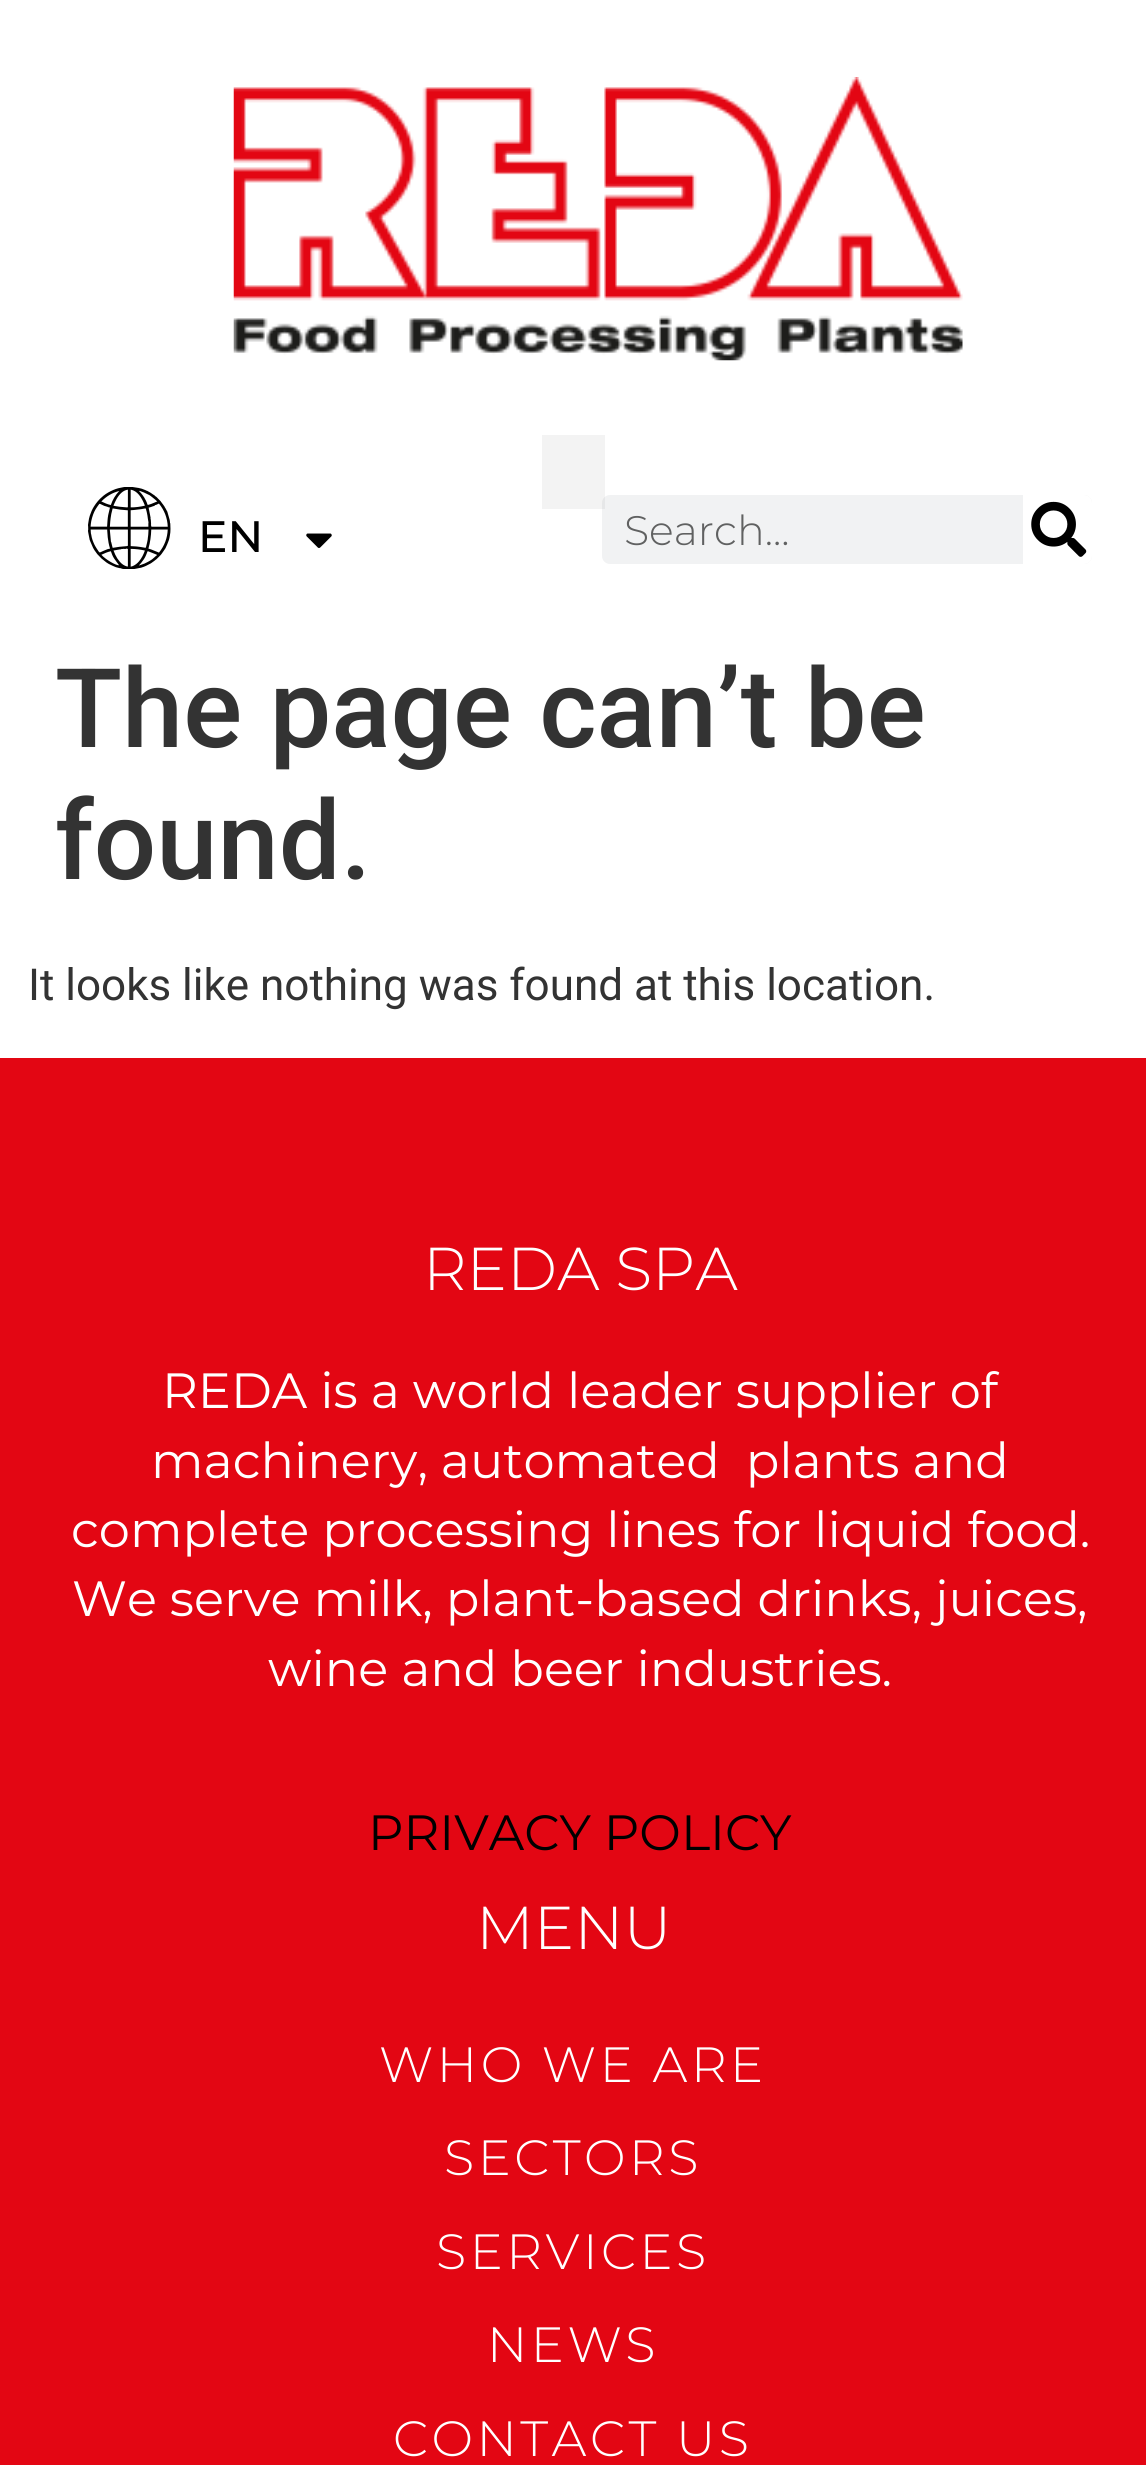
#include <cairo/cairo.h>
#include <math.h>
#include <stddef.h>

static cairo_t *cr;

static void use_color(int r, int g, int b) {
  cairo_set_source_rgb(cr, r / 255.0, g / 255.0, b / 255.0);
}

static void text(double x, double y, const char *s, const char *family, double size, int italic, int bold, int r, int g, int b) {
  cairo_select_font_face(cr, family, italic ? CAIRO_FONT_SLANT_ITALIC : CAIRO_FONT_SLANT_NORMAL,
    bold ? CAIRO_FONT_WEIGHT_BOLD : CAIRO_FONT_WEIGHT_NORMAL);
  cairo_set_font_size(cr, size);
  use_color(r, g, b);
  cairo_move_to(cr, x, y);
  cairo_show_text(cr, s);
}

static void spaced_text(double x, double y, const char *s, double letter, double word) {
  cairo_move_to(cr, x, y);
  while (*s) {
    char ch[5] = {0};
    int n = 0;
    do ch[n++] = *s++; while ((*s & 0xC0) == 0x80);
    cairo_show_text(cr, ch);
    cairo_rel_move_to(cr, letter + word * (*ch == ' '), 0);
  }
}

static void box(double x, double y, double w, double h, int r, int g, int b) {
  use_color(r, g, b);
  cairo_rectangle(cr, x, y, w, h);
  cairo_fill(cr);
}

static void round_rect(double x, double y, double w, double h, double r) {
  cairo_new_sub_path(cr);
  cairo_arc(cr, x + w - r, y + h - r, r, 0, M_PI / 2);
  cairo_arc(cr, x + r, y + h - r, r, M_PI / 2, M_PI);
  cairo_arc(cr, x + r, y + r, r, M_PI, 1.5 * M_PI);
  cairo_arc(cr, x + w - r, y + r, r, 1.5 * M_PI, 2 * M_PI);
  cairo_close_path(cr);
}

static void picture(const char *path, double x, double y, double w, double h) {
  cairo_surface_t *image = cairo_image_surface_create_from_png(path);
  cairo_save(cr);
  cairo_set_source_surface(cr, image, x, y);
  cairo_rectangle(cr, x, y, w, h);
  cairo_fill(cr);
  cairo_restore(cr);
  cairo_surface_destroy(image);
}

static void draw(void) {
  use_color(255, 255, 255);
  cairo_paint(cr);
  picture("img_01.png", 233, 77, 730, 284);
  use_color(241, 242, 243);
  round_rect(602, 495, 490, 69, 8);
  cairo_fill(cr);
  cairo_set_source_rgba(cr, 0, 0, 0, 0.05);
  cairo_rectangle(cr, 542, 435, 63, 74);
  cairo_fill(cr);
  picture("img_02.png", 88, 487, 83, 82);
  picture("img_03.png", 306, 533, 26, 15);
  use_color(255, 255, 255);
  cairo_new_path(cr);
  cairo_move_to(cr, 1023, 495);
  cairo_line_to(cr, 1084, 495);
  cairo_curve_to(cr, 1088.5, 495, 1092, 498.5, 1092, 503);
  cairo_line_to(cr, 1092, 556);
  cairo_curve_to(cr, 1092, 560.5, 1088.5, 564, 1084, 564);
  cairo_line_to(cr, 1023, 564);
  cairo_close_path(cr);
  cairo_fill(cr);
  picture("img_04.png", 1031, 501, 56, 56);
  box(0, 1058, 1146, 1407, 227, 6, 19);
  text(198, 552, "EN", "Montserrat Medium", 44, 0, 0, 0, 0, 0);
  text(624, 545, "Search...", "Montserrat Light", 41.25, 0, 0, 96, 97, 97);
  text(55, 747, "The page can’t be", "Roboto Medium", 110, 0, 0, 51, 51, 51);
  text(55, 879, "found.", "Roboto Medium", 110, 0, 0, 51, 51, 51);
  text(28, 1000, "It looks like nothing was found at this location.", "Roboto", 44, 0, 0, 51, 51, 51);
  text(423, 1290, "REDA SPA", "Montserrat Light", 60.5, 0, 0, 255, 255, 255);
  text(162, 1408, "REDA is a world leader supplier of", "Montserrat", 49.5, 0, 0, 255, 255, 255);
  text(151, 1478, "machinery, automated  plants and", "Montserrat", 49.5, 0, 0, 255, 255, 255);
  text(71, 1547, "complete processing lines for liquid food.", "Montserrat", 49.5, 0, 0, 255, 255, 255);
  text(72, 1616, "We serve milk, plant-based drinks, juices,", "Montserrat", 49.5, 0, 0, 255, 255, 255);
  text(268, 1686, "wine and beer industries.", "Montserrat", 49.5, 0, 0, 255, 255, 255);
  text(368, 1850, "PRIVACY POLICY", "Montserrat", 49.5, 0, 0, 0, 0, 0);
  text(476, 1949, "MENU", "Montserrat Light", 60.5, 0, 0, 255, 255, 255);
  cairo_set_font_size(cr, 49.5);
  spaced_text(379, 2082, "WHO WE ARE", 3.5, 0);
  spaced_text(444, 2175, "SECTORS", 3.5, 0);
  spaced_text(436, 2269, "SERVICES", 3.5, 0);
  spaced_text(487, 2362, "NEWS", 3.5, 0);
  spaced_text(393, 2456, "CONTACT US", 3.5, 0);
}

int main(void) {
  cairo_surface_t *surface = cairo_image_surface_create(CAIRO_FORMAT_RGB24, 1146, 2465);
  cr = cairo_create(surface);
  cairo_font_options_t *options = cairo_font_options_create();
  cairo_font_options_set_hint_metrics(options, CAIRO_HINT_METRICS_OFF);
  cairo_font_options_set_hint_style(options, CAIRO_HINT_STYLE_NONE);
  cairo_set_font_options(cr, options);
  cairo_set_miter_limit(cr, 4);
  draw();
  cairo_surface_write_to_png(surface, "out.png");
  cairo_font_options_destroy(options);
  cairo_destroy(cr);
  cairo_surface_destroy(surface);
  return 0;
}
